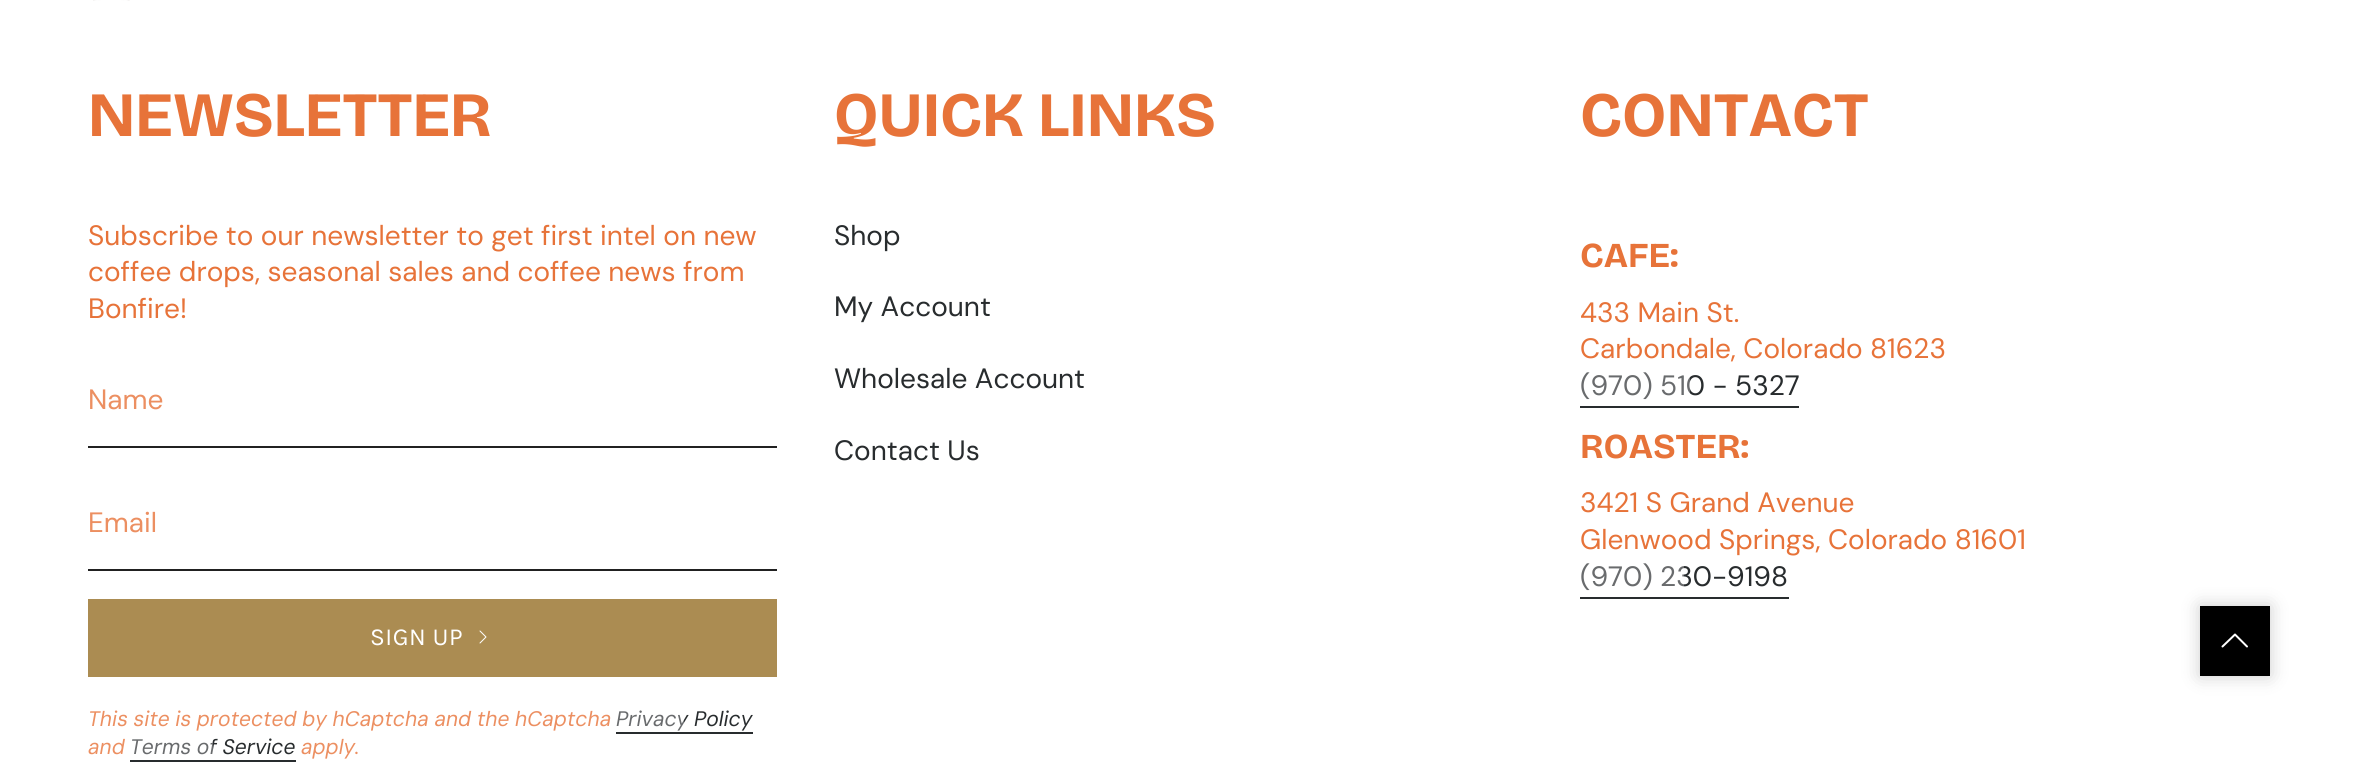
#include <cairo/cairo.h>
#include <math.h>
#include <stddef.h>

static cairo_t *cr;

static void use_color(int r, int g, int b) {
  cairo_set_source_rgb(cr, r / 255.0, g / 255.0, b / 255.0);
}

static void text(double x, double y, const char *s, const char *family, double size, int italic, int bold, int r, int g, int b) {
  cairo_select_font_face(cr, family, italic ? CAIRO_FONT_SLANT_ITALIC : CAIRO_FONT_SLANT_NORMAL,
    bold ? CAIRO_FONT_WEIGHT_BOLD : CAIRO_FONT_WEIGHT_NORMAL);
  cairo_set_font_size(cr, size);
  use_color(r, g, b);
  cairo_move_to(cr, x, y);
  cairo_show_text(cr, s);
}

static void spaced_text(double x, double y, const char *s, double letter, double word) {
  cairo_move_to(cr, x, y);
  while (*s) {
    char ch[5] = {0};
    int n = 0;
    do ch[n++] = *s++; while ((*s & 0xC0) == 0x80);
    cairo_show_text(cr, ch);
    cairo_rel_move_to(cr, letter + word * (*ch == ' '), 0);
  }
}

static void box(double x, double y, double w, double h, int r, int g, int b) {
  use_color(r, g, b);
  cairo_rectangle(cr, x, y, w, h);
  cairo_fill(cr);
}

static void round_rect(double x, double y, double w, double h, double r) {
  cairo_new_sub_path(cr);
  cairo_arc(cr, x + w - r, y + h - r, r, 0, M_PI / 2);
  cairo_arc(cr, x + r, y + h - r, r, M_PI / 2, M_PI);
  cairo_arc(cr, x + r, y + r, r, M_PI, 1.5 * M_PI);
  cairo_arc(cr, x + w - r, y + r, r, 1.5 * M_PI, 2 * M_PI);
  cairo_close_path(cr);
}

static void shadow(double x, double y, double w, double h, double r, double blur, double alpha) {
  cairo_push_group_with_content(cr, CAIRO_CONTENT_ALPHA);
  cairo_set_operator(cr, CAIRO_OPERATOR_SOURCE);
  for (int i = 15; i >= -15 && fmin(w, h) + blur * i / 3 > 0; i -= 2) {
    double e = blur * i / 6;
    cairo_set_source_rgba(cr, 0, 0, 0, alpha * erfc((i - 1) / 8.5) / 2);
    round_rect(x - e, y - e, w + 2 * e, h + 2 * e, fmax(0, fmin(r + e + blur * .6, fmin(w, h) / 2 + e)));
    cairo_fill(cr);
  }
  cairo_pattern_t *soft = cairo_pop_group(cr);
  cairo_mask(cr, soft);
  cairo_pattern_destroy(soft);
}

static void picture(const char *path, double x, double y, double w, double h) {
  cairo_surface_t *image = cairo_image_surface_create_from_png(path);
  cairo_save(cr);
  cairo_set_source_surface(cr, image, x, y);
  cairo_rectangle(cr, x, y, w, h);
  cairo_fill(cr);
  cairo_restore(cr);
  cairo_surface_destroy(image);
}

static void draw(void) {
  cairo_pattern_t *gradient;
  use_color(255, 255, 255);
  cairo_paint(cr);
  picture("img_01.png", 93, 0, 37, 1);
  box(88, 446, 689, 2, 33, 33, 33);
  box(88, 569, 689, 2, 33, 33, 33);
  box(88, 599, 689, 78, 171, 140, 82);
  cairo_new_path(cr);
  cairo_move_to(cr, 480, 631);
  cairo_line_to(cr, 486, 637);
  cairo_line_to(cr, 480, 643);
  use_color(255, 255, 255);
  cairo_set_line_width(cr, 1);
  cairo_set_line_cap(cr, CAIRO_LINE_CAP_ROUND);
  cairo_set_line_join(cr, CAIRO_LINE_JOIN_ROUND);
  cairo_stroke(cr);
  box(616, 732, 137, 2, 40, 44, 46);
  box(130, 760, 166, 2, 40, 44, 46);
  box(1580, 406, 219, 2, 40, 44, 46);
  box(1580, 597, 209, 2, 40, 44, 46);
  use_color(0, 0, 0);
  shadow(2200, 606, 70, 70, 0, 9, 0.2);
  box(2200, 606, 70, 70, 0, 0, 0);
  cairo_new_path(cr);
  cairo_move_to(cr, 2222.5, 646.5);
  cairo_line_to(cr, 2235, 634.5);
  cairo_line_to(cr, 2247, 646.5);
  use_color(255, 255, 255);
  cairo_set_line_width(cr, 2);
  cairo_stroke(cr);
  text(88, 136, "NEWSLETTER", "Bricolage Grotesque", 63, 0, 1, 231, 115, 57);
  text(88, 245, "Subscribe to our newsletter to get first intel on new", "DM Sans", 28, 0, 0, 231, 115, 57);
  text(88, 281, "coffee drops, seasonal sales and coffee news from", "DM Sans", 28, 0, 0, 231, 115, 57);
  text(88, 318, "Bonfire!", "DM Sans", 28, 0, 0, 231, 115, 57);
  text(88, 409, "Name", "DM Sans", 28, 0, 0, 236, 143, 97);
  text(88, 532, "Email", "DM Sans", 28, 0, 0, 236, 143, 97);
  cairo_select_font_face(cr, "Karla", CAIRO_FONT_SLANT_NORMAL, CAIRO_FONT_WEIGHT_NORMAL);
  cairo_set_font_size(cr, 24.5);
  use_color(255, 255, 255);
  spaced_text(370, 645, "SIGN UP", 0.5, 0);
  text(88, 726, "This site is protected by hCaptcha and the hCaptcha", "DM Sans", 21, 1, 0, 236, 143, 97);
  gradient = cairo_pattern_create_linear(616, 719, 752, 719);
  cairo_pattern_add_color_stop_rgba(gradient, 0, 0.412, 0.42, 0.427, 1);
  cairo_pattern_add_color_stop_rgba(gradient, 0.5, 0.412, 0.42, 0.427, 1);
  cairo_pattern_add_color_stop_rgba(gradient, 0.5, 0.157, 0.173, 0.18, 1);
  cairo_pattern_add_color_stop_rgba(gradient, 1, 0.157, 0.173, 0.18, 1);
  cairo_set_source(cr, gradient);
  cairo_pattern_destroy(gradient);
  cairo_move_to(cr, 616, 726);
  cairo_show_text(cr, "Privacy Policy");
  text(88, 754, "and", "DM Sans", 21, 1, 0, 236, 143, 97);
  gradient = cairo_pattern_create_linear(130, 747, 295, 747);
  cairo_pattern_add_color_stop_rgba(gradient, 0, 0.412, 0.42, 0.427, 1);
  cairo_pattern_add_color_stop_rgba(gradient, 0.5, 0.412, 0.42, 0.427, 1);
  cairo_pattern_add_color_stop_rgba(gradient, 0.5, 0.157, 0.173, 0.18, 1);
  cairo_pattern_add_color_stop_rgba(gradient, 1, 0.157, 0.173, 0.18, 1);
  cairo_set_source(cr, gradient);
  cairo_pattern_destroy(gradient);
  cairo_move_to(cr, 130, 754);
  cairo_show_text(cr, "Terms of Service");
  text(301, 754, "apply.", "DM Sans", 21, 1, 0, 236, 143, 97);
  text(834, 136, "QUICK LINKS", "Bricolage Grotesque", 63, 0, 1, 231, 115, 57);
  text(834, 245, "Shop", "DM Sans", 28, 0, 0, 40, 44, 46);
  text(834, 316, "My Account", "DM Sans", 28, 0, 0, 40, 44, 46);
  text(834, 388, "Wholesale Account", "DM Sans", 28, 0, 0, 40, 44, 46);
  text(834, 460, "Contact Us", "DM Sans", 28, 0, 0, 40, 44, 46);
  text(1580, 136, "CONTACT", "Bricolage Grotesque", 63, 0, 1, 231, 115, 57);
  text(1580, 267, "CAFE:", "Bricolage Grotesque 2", 35, 0, 1, 231, 115, 57);
  text(1580, 322, "433 Main St.", "DM Sans", 28, 0, 0, 231, 115, 57);
  text(1580, 358, "Carbondale, Colorado 81623", "DM Sans", 28, 0, 0, 231, 115, 57);
  gradient = cairo_pattern_create_linear(1580, 387, 1799, 387);
  cairo_pattern_add_color_stop_rgba(gradient, 0, 0.412, 0.42, 0.427, 1);
  cairo_pattern_add_color_stop_rgba(gradient, 0.5, 0.412, 0.42, 0.427, 1);
  cairo_pattern_add_color_stop_rgba(gradient, 0.5, 0.157, 0.173, 0.18, 1);
  cairo_pattern_add_color_stop_rgba(gradient, 1, 0.157, 0.173, 0.18, 1);
  cairo_set_source(cr, gradient);
  cairo_pattern_destroy(gradient);
  cairo_move_to(cr, 1580, 395);
  cairo_show_text(cr, "(970) 510 - 5327");
  text(1580, 458, "ROASTER:", "Bricolage Grotesque 2", 35, 0, 1, 231, 115, 57);
  text(1580, 512, "3421 S Grand Avenue", "DM Sans", 28, 0, 0, 231, 115, 57);
  text(1580, 549, "Glenwood Springs, Colorado 81601", "DM Sans", 28, 0, 0, 231, 115, 57);
  gradient = cairo_pattern_create_linear(1580, 578, 1788, 578);
  cairo_pattern_add_color_stop_rgba(gradient, 0, 0.412, 0.42, 0.427, 1);
  cairo_pattern_add_color_stop_rgba(gradient, 0.5, 0.412, 0.42, 0.427, 1);
  cairo_pattern_add_color_stop_rgba(gradient, 0.5, 0.157, 0.173, 0.18, 1);
  cairo_pattern_add_color_stop_rgba(gradient, 1, 0.157, 0.173, 0.18, 1);
  cairo_set_source(cr, gradient);
  cairo_pattern_destroy(gradient);
  cairo_move_to(cr, 1580, 586);
  cairo_show_text(cr, "(970) 230-9198");
}

int main(void) {
  cairo_surface_t *surface = cairo_image_surface_create(CAIRO_FORMAT_RGB24, 2356, 763);
  cr = cairo_create(surface);
  cairo_font_options_t *options = cairo_font_options_create();
  cairo_font_options_set_hint_metrics(options, CAIRO_HINT_METRICS_OFF);
  cairo_font_options_set_hint_style(options, CAIRO_HINT_STYLE_NONE);
  cairo_set_font_options(cr, options);
  cairo_set_miter_limit(cr, 4);
  draw();
  cairo_surface_write_to_png(surface, "out.png");
  cairo_font_options_destroy(options);
  cairo_destroy(cr);
  cairo_surface_destroy(surface);
  return 0;
}
